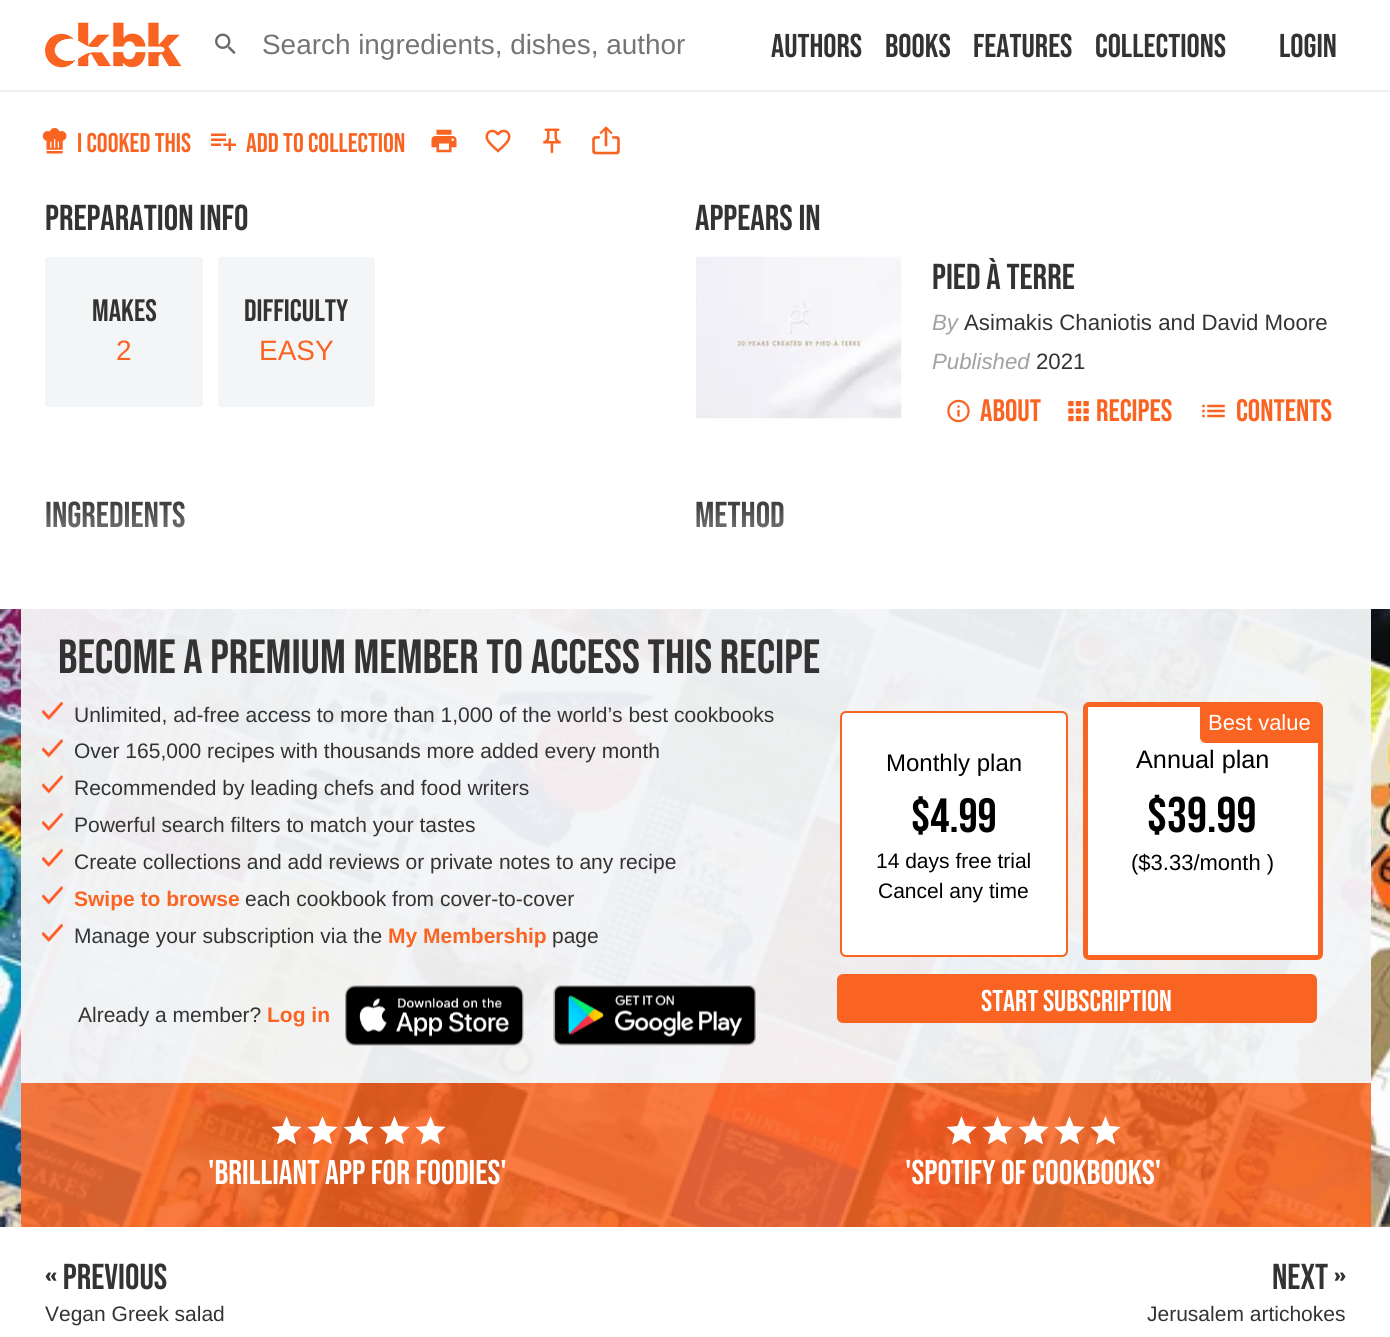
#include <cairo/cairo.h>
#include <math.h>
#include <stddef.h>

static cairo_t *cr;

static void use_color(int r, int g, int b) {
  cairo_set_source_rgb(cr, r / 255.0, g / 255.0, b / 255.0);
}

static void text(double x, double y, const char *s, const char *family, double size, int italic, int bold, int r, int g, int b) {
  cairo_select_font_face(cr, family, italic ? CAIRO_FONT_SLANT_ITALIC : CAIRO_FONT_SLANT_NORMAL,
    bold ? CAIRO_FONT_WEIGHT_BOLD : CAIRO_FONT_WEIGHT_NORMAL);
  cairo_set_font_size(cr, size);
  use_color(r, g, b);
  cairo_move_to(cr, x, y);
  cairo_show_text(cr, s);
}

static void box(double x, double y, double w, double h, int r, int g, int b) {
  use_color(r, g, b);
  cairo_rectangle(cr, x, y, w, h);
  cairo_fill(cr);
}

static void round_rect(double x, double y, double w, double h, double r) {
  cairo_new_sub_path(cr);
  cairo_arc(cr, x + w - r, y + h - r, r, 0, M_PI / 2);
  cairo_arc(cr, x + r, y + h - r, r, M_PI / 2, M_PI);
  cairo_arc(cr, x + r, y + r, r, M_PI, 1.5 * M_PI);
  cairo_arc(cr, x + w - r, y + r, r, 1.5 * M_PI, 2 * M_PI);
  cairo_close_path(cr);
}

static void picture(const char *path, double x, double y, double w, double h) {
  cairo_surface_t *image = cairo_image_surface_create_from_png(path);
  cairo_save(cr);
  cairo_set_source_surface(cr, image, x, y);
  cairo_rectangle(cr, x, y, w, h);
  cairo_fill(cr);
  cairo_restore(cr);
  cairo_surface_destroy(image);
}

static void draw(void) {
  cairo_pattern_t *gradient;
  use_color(255, 255, 255);
  cairo_paint(cr);
  box(0, 90, 1390, 2, 240, 240, 240);
  picture("img_01.png", 45, 22, 137, 46);
  picture("img_02.png", 215, 33, 21, 21);
  picture("img_03.png", 42, 127, 25, 27);
  picture("img_04.png", 211, 133, 25, 18);
  picture("img_05.png", 431, 129, 26, 24);
  picture("img_06.png", 485, 129, 26, 24);
  picture("img_07.png", 543, 128, 18, 26);
  picture("img_08.png", 592, 126, 28, 29);
  use_color(244, 245, 247);
  round_rect(45, 257, 158, 150, 3);
  cairo_fill(cr);
  round_rect(218, 257, 157, 150, 3);
  cairo_fill(cr);
  picture("img_09.png", 696, 256, 206, 163);
  picture("img_10.png", 947, 399, 23, 24);
  picture("img_11.png", 1068, 401, 21, 21);
  picture("img_12.png", 1202, 404, 23, 14);
  picture("img_13.png", 0, 609, 1390, 618);
  cairo_set_source_rgba(cr, 0.957, 0.961, 0.969, 0.95);
  cairo_rectangle(cr, 21, 609, 1350, 474);
  cairo_fill(cr);
  picture("img_14.png", 42, 701, 21, 19);
  picture("img_15.png", 42, 739, 21, 19);
  picture("img_16.png", 42, 775, 21, 19);
  picture("img_17.png", 42, 812, 21, 19);
  picture("img_18.png", 42, 848, 21, 19);
  picture("img_19.png", 42, 886, 21, 19);
  picture("img_20.png", 42, 923, 21, 19);
  picture("img_21.png", 345, 985, 179, 61);
  picture("img_22.png", 553, 985, 203, 61);
  use_color(255, 255, 255);
  round_rect(841, 712, 226, 244, 5);
  cairo_fill_preserve(cr);
  use_color(250, 100, 34);
  cairo_stroke(cr);
  use_color(255, 255, 255);
  round_rect(1085.5, 704.5, 235, 253, 3.5);
  cairo_fill_preserve(cr);
  use_color(250, 100, 34);
  cairo_set_line_width(cr, 5);
  cairo_stroke(cr);
  cairo_new_path(cr);
  cairo_move_to(cr, 1200, 705);
  cairo_line_to(cr, 1313, 705);
  cairo_curve_to(cr, 1316.5, 705, 1319, 707.5, 1319, 711);
  cairo_line_to(cr, 1319, 743);
  cairo_line_to(cr, 1206, 743);
  cairo_curve_to(cr, 1202.5, 743, 1200, 740.5, 1200, 737);
  cairo_close_path(cr);
  cairo_fill(cr);
  round_rect(837, 974, 480, 49, 6);
  cairo_fill(cr);
  cairo_set_source_rgba(cr, 0.98, 0.392, 0.133, 0.85);
  cairo_rectangle(cr, 21, 1083, 1350, 144);
  cairo_fill(cr);
  use_color(255, 255, 255);
  cairo_new_path(cr);
  cairo_move_to(cr, 286.5, 1139);
  cairo_line_to(cr, 296, 1144.5);
  cairo_line_to(cr, 293.5, 1134);
  cairo_line_to(cr, 301.5, 1127);
  cairo_line_to(cr, 290.5, 1126);
  cairo_line_to(cr, 286.5, 1116);
  cairo_line_to(cr, 282.5, 1126);
  cairo_line_to(cr, 271.5, 1127);
  cairo_line_to(cr, 279.5, 1134);
  cairo_line_to(cr, 277, 1144.5);
  cairo_close_path(cr);
  cairo_fill(cr);
  cairo_new_path(cr);
  cairo_move_to(cr, 322.5, 1139);
  cairo_line_to(cr, 332, 1144.5);
  cairo_line_to(cr, 329.5, 1134);
  cairo_line_to(cr, 337.5, 1127);
  cairo_line_to(cr, 326.5, 1126);
  cairo_line_to(cr, 322.5, 1116);
  cairo_line_to(cr, 318.5, 1126);
  cairo_line_to(cr, 307.5, 1127);
  cairo_line_to(cr, 315.5, 1134);
  cairo_line_to(cr, 313, 1144.5);
  cairo_close_path(cr);
  cairo_fill(cr);
  cairo_new_path(cr);
  cairo_move_to(cr, 358.5, 1139);
  cairo_line_to(cr, 368, 1144.5);
  cairo_line_to(cr, 365.5, 1134);
  cairo_line_to(cr, 373.5, 1127);
  cairo_line_to(cr, 362.5, 1126);
  cairo_line_to(cr, 358.5, 1116);
  cairo_line_to(cr, 354.5, 1126);
  cairo_line_to(cr, 343.5, 1127);
  cairo_line_to(cr, 351.5, 1134);
  cairo_line_to(cr, 349, 1144.5);
  cairo_close_path(cr);
  cairo_fill(cr);
  cairo_new_path(cr);
  cairo_move_to(cr, 394.5, 1139);
  cairo_line_to(cr, 404, 1144.5);
  cairo_line_to(cr, 401.5, 1134);
  cairo_line_to(cr, 409.5, 1127);
  cairo_line_to(cr, 398.5, 1126);
  cairo_line_to(cr, 394.5, 1116);
  cairo_line_to(cr, 390.5, 1126);
  cairo_line_to(cr, 379.5, 1127);
  cairo_line_to(cr, 387.5, 1134);
  cairo_line_to(cr, 385, 1144.5);
  cairo_close_path(cr);
  cairo_fill(cr);
  cairo_new_path(cr);
  cairo_move_to(cr, 430.5, 1139);
  cairo_line_to(cr, 440, 1144.5);
  cairo_line_to(cr, 437.5, 1134);
  cairo_line_to(cr, 445.5, 1127);
  cairo_line_to(cr, 434.5, 1126);
  cairo_line_to(cr, 430.5, 1116);
  cairo_line_to(cr, 426.5, 1126);
  cairo_line_to(cr, 415.5, 1127);
  cairo_line_to(cr, 423.5, 1134);
  cairo_line_to(cr, 421, 1144.5);
  cairo_close_path(cr);
  cairo_fill(cr);
  cairo_new_path(cr);
  cairo_move_to(cr, 961.5, 1139);
  cairo_line_to(cr, 971, 1144.5);
  cairo_line_to(cr, 968.5, 1134);
  cairo_line_to(cr, 976.5, 1127);
  cairo_line_to(cr, 965.5, 1126);
  cairo_line_to(cr, 961.5, 1116);
  cairo_line_to(cr, 957.5, 1126);
  cairo_line_to(cr, 946.5, 1127);
  cairo_line_to(cr, 954.5, 1134);
  cairo_line_to(cr, 952, 1144.5);
  cairo_close_path(cr);
  cairo_fill(cr);
  cairo_new_path(cr);
  cairo_move_to(cr, 997.5, 1139);
  cairo_line_to(cr, 1007, 1144.5);
  cairo_line_to(cr, 1004.5, 1134);
  cairo_line_to(cr, 1012.5, 1127);
  cairo_line_to(cr, 1001.5, 1126);
  cairo_line_to(cr, 997.5, 1116);
  cairo_line_to(cr, 993.5, 1126);
  cairo_line_to(cr, 982.5, 1127);
  cairo_line_to(cr, 990.5, 1134);
  cairo_line_to(cr, 988, 1144.5);
  cairo_close_path(cr);
  cairo_fill(cr);
  cairo_new_path(cr);
  cairo_move_to(cr, 1033.5, 1139);
  cairo_line_to(cr, 1043, 1144.5);
  cairo_line_to(cr, 1040.5, 1134);
  cairo_line_to(cr, 1048.5, 1127);
  cairo_line_to(cr, 1037.5, 1126);
  cairo_line_to(cr, 1033.5, 1116);
  cairo_line_to(cr, 1029.5, 1126);
  cairo_line_to(cr, 1018.5, 1127);
  cairo_line_to(cr, 1026.5, 1134);
  cairo_line_to(cr, 1024, 1144.5);
  cairo_close_path(cr);
  cairo_fill(cr);
  cairo_new_path(cr);
  cairo_move_to(cr, 1069.5, 1139);
  cairo_line_to(cr, 1079, 1144.5);
  cairo_line_to(cr, 1076.5, 1134);
  cairo_line_to(cr, 1084.5, 1127);
  cairo_line_to(cr, 1073.5, 1126);
  cairo_line_to(cr, 1069.5, 1116);
  cairo_line_to(cr, 1065.5, 1126);
  cairo_line_to(cr, 1054.5, 1127);
  cairo_line_to(cr, 1062.5, 1134);
  cairo_line_to(cr, 1060, 1144.5);
  cairo_close_path(cr);
  cairo_fill(cr);
  cairo_new_path(cr);
  cairo_move_to(cr, 1105.5, 1139);
  cairo_line_to(cr, 1115, 1144.5);
  cairo_line_to(cr, 1112.5, 1134);
  cairo_line_to(cr, 1120.5, 1127);
  cairo_line_to(cr, 1109.5, 1126);
  cairo_line_to(cr, 1105.5, 1116);
  cairo_line_to(cr, 1101.5, 1126);
  cairo_line_to(cr, 1090.5, 1127);
  cairo_line_to(cr, 1098.5, 1134);
  cairo_line_to(cr, 1096, 1144.5);
  cairo_close_path(cr);
  cairo_fill(cr);
  text(262, 54, "Search ingredients, dishes, author", "Liberation Sans", 27.9, 0, 0, 117, 117, 117);
  text(771, 57, "Authors", "Bebas Neue", 33, 0, 0, 51, 51, 51);
  text(885, 57, "Books", "Bebas Neue", 33, 0, 0, 51, 51, 51);
  text(973, 57, "Features", "Bebas Neue", 33, 0, 0, 51, 51, 51);
  text(1095, 57, "Collections", "Bebas Neue", 33, 0, 0, 51, 51, 51);
  text(1279, 57, "Login", "Bebas Neue", 33, 0, 0, 51, 51, 51);
  text(77, 152, "I COOKED THIS", "Bebas Neue", 27, 0, 0, 250, 100, 34);
  text(246, 152, "ADD TO COLLECTION", "Bebas Neue", 27, 0, 0, 250, 100, 34);
  text(45, 230, "PREPARATION INFO", "Bebas Neue", 36, 0, 0, 51, 51, 51);
  text(92, 321, "MAKES", "Bebas Neue", 31, 0, 0, 51, 51, 51);
  text(116, 360, "2", "Liberation Sans", 28, 0, 0, 250, 100, 34);
  text(244, 321, "DIFFICULTY", "Bebas Neue", 31, 0, 0, 51, 51, 51);
  text(259, 360, "EASY", "Liberation Sans", 28, 0, 0, 250, 100, 34);
  text(695, 230, "APPEARS IN", "Bebas Neue", 36, 0, 0, 51, 51, 51);
  text(932, 289, "PIED À TERRE", "Bebas Neue", 36, 0, 0, 51, 51, 51);
  text(932, 330, "By", "Liberation Sans", 22.25, 1, 0, 161, 161, 161);
  text(964, 330, "Asimakis Chaniotis and David Moore", "Liberation Sans", 22.25, 0, 0, 51, 51, 51);
  text(932, 369, "Published", "Liberation Sans", 22.25, 1, 0, 161, 161, 161);
  text(1036, 369, "2021", "Liberation Sans", 22.25, 0, 0, 51, 51, 51);
  text(980, 421, "ABOUT", "Bebas Neue", 31, 0, 0, 250, 100, 34);
  text(1096, 421, "RECIPES", "Bebas Neue", 31, 0, 0, 250, 100, 34);
  text(1236, 421, "CONTENTS", "Bebas Neue", 31, 0, 0, 250, 100, 34);
  text(45, 527, "INGREDIENTS", "Bebas Neue", 36, 0, 0, 51, 51, 51);
  text(695, 527, "METHOD", "Bebas Neue", 36, 0, 0, 51, 51, 51);
  gradient = cairo_pattern_create_linear(695, 496, 695, 609);
  cairo_pattern_add_color_stop_rgba(gradient, 0, 1, 1, 1, 0);
  cairo_pattern_add_color_stop_rgba(gradient, 1, 1, 1, 1, 1);
  cairo_set_source(cr, gradient);
  cairo_pattern_destroy(gradient);
  cairo_rectangle(cr, 46, 501, 738, 27);
  cairo_fill(cr);
  text(58, 673, "BECOME A PREMIUM MEMBER TO ACCESS THIS RECIPE", "Bebas Neue", 48, 0, 0, 51, 51, 51);
  text(74, 722, "Unlimited, ad-free access to more than 1,000 of the world’s best cookbooks", "Liberation Sans", 21, 0, 0, 51, 51, 51);
  text(74, 758, "Over 165,000 recipes with thousands more added every month", "Liberation Sans", 21, 0, 0, 51, 51, 51);
  text(74, 795, "Recommended by leading chefs and food writers", "Liberation Sans", 21, 0, 0, 51, 51, 51);
  text(74, 832, "Powerful search filters to match your tastes", "Liberation Sans", 21, 0, 0, 51, 51, 51);
  text(74, 869, "Create collections and add reviews or private notes to any recipe", "Liberation Sans", 21, 0, 0, 51, 51, 51);
  text(74, 906, "Swipe to browse", "Liberation Sans", 21, 0, 1, 250, 100, 34);
  text(245, 906, "each cookbook from cover-to-cover", "Liberation Sans", 21, 0, 0, 51, 51, 51);
  text(74, 943, "Manage your subscription via the", "Liberation Sans", 21, 0, 0, 51, 51, 51);
  text(388, 943, "My Membership", "Liberation Sans", 21, 0, 1, 250, 100, 34);
  text(552, 943, "page", "Liberation Sans", 21, 0, 0, 51, 51, 51);
  text(78, 1022, "Already a member?", "Liberation Sans", 21, 0, 0, 51, 51, 51);
  text(267, 1022, "Log in", "Liberation Sans", 21, 0, 1, 250, 100, 34);
  text(886, 771, "Monthly plan", "Liberation Sans", 24, 0, 0, 0, 0, 0);
  text(911, 832, "$4.99", "Bebas Neue", 48, 0, 0, 0, 0, 0);
  text(876, 868, "14 days free trial", "Liberation Sans", 21, 0, 0, 0, 0, 0);
  text(878, 898, "Cancel any time", "Liberation Sans", 21, 0, 0, 0, 0, 0);
  text(1208, 730, "Best value", "Liberation Sans", 22, 0, 0, 255, 255, 255);
  text(1136, 768, "Annual plan", "Liberation Sans", 25.25, 0, 0, 0, 0, 0);
  text(1147, 832, "$39.99", "Bebas Neue", 50, 0, 0, 0, 0, 0);
  text(1131, 870, "($3.33/month )", "Liberation Sans", 22, 0, 0, 0, 0, 0);
  text(981, 1011, "START SUBSCRIPTION", "Bebas Neue", 30, 0, 0, 255, 255, 255);
  text(208, 1184, "'Brilliant app for foodies'", "Bebas Neue", 34.25, 0, 0, 255, 255, 255);
  text(905, 1184, "'Spotify of cookbooks'", "Bebas Neue", 34.25, 0, 0, 255, 255, 255);
  text(45, 1289, "« PREVIOUS", "Bebas Neue", 36, 0, 0, 51, 51, 51);
  text(45, 1321, "Vegan Greek salad", "Liberation Sans", 21, 0, 0, 51, 51, 51);
  text(1272, 1289, "NEXT »", "Bebas Neue", 36, 0, 0, 51, 51, 51);
  text(1147, 1321, "Jerusalem artichokes", "Liberation Sans", 21, 0, 0, 51, 51, 51);
}

int main(void) {
  cairo_surface_t *surface = cairo_image_surface_create(CAIRO_FORMAT_RGB24, 1390, 1337);
  cr = cairo_create(surface);
  cairo_font_options_t *options = cairo_font_options_create();
  cairo_font_options_set_hint_metrics(options, CAIRO_HINT_METRICS_OFF);
  cairo_font_options_set_hint_style(options, CAIRO_HINT_STYLE_NONE);
  cairo_set_font_options(cr, options);
  cairo_set_miter_limit(cr, 4);
  draw();
  cairo_surface_write_to_png(surface, "out.png");
  cairo_font_options_destroy(options);
  cairo_destroy(cr);
  cairo_surface_destroy(surface);
  return 0;
}
